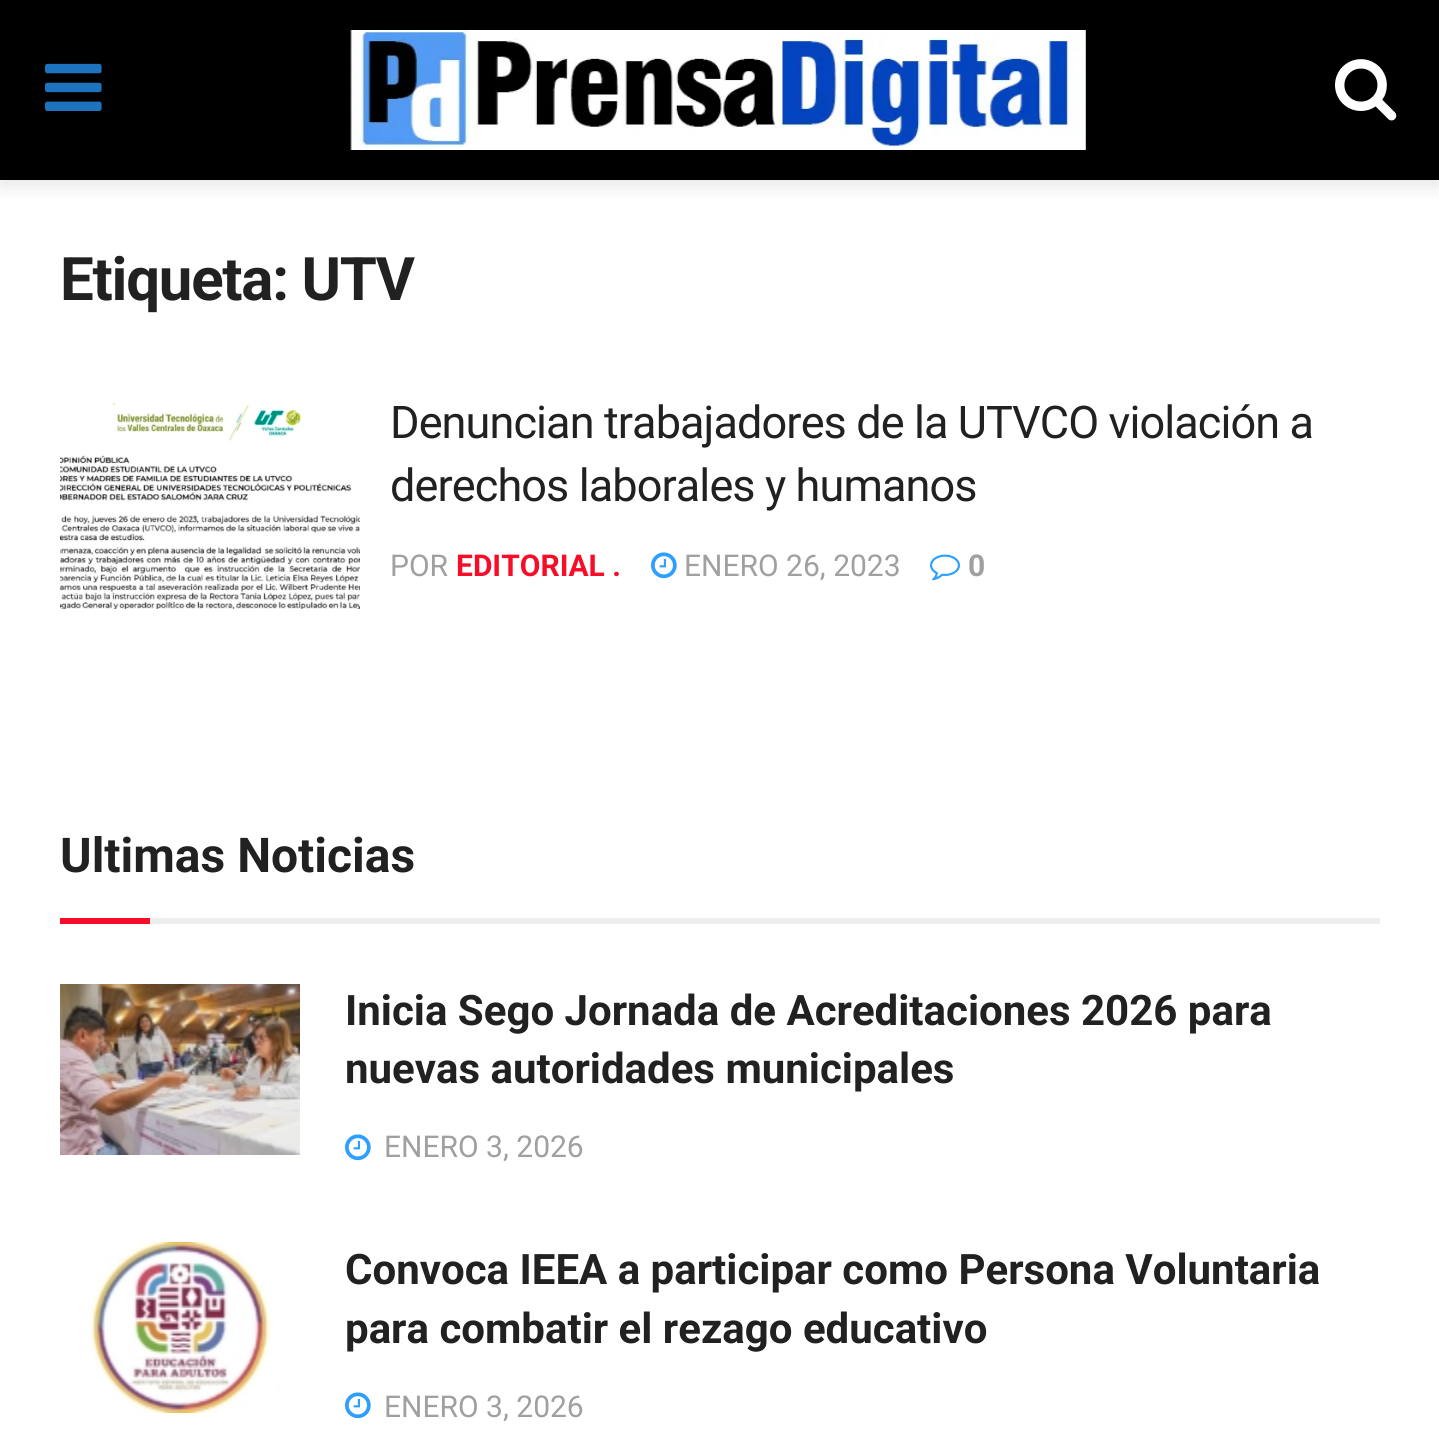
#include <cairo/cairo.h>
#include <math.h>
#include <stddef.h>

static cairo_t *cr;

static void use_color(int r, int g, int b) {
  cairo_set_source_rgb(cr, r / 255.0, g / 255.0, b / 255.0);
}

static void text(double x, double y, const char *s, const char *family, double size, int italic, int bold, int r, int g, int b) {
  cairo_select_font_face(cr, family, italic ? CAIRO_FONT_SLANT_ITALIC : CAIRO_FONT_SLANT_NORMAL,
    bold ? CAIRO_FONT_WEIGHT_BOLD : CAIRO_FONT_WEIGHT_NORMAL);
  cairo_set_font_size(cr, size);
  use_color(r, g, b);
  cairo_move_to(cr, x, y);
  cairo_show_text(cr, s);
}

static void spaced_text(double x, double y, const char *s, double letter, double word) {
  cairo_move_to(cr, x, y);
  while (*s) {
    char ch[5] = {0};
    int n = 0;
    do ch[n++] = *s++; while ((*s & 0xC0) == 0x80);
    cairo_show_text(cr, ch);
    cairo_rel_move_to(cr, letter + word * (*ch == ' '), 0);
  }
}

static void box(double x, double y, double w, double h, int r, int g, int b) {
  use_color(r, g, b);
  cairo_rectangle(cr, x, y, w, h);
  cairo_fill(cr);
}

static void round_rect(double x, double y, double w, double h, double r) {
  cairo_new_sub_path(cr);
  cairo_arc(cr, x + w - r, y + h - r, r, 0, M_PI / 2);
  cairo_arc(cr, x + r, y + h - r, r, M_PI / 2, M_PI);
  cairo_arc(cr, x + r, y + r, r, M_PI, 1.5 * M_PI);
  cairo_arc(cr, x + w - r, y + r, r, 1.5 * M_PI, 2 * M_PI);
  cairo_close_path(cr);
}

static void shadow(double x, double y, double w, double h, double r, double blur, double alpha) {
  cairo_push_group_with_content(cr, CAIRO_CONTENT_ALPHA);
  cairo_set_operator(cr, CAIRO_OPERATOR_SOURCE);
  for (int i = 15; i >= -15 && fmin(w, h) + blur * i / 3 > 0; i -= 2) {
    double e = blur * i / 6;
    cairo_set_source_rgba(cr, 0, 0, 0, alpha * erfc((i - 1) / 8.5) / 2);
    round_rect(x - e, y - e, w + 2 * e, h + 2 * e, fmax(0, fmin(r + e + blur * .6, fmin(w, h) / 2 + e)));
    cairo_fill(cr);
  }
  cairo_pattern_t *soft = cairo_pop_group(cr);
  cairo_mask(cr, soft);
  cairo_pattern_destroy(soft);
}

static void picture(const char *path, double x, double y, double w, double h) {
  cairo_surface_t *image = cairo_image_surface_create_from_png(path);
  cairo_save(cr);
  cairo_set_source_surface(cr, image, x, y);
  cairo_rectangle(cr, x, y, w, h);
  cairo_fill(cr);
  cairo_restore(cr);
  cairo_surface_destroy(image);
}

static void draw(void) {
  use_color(255, 255, 255);
  cairo_paint(cr);
  use_color(0, 0, 0);
  shadow(0, 6, 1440, 180, 0, 9, 0.1);
  box(0, 0, 1439, 180, 0, 0, 0);
  picture("img_01.png", 45, 63, 57, 48);
  picture("img_02.png", 350, 30, 736, 120);
  picture("img_03.png", 1335, 59, 62, 62);
  picture("img_04.png", 60, 393, 300, 216);
  picture("img_05.png", 651, 552, 26, 27);
  picture("img_06.png", 930, 554, 30, 27);
  box(150, 918, 1230, 6, 238, 238, 238);
  box(60, 918, 90, 6, 247, 13, 40);
  picture("img_07.png", 60, 984, 240, 171);
  picture("img_05.png", 345, 1134, 26, 27);
  picture("img_08.png", 60, 1242, 240, 171);
  picture("img_05.png", 345, 1392, 26, 27);
  cairo_select_font_face(cr, "Roboto", CAIRO_FONT_SLANT_NORMAL, CAIRO_FONT_WEIGHT_BOLD);
  cairo_set_font_size(cr, 60);
  use_color(33, 33, 33);
  spaced_text(60, 300, "Etiqueta: UTV", -1.25, 0);
  cairo_select_font_face(cr, "Roboto", CAIRO_FONT_SLANT_NORMAL, CAIRO_FONT_WEIGHT_NORMAL);
  cairo_set_font_size(cr, 45);
  spaced_text(390, 438, "Denuncian trabajadores de la UTVCO violación a", -0.9, 0);
  spaced_text(390, 501, "derechos laborales y humanos", -0.9, 0);
  text(390, 576, "POR", "Roboto", 30, 0, 0, 160, 160, 160);
  text(456, 576, "EDITORIAL .", "Roboto", 30, 0, 1, 247, 13, 40);
  text(684, 576, "ENERO 26, 2023", "Roboto", 30, 0, 0, 160, 160, 160);
  text(968, 576, "0", "Roboto", 30, 0, 1, 160, 160, 160);
  text(60, 872, "Ultimas Noticias", "Roboto", 48, 0, 1, 33, 33, 33);
  text(345, 1025, "Inicia Sego Jornada de Acreditaciones 2026 para", "Roboto", 42, 0, 1, 33, 33, 33);
  text(345, 1083, "nuevas autoridades municipales", "Roboto", 42, 0, 1, 33, 33, 33);
  text(384, 1157, "ENERO 3, 2026", "Roboto", 30, 0, 0, 160, 160, 160);
  text(345, 1284, "Convoca IEEA a participar como Persona Voluntaria", "Roboto", 42, 0, 1, 33, 33, 33);
  text(345, 1343, "para combatir el rezago educativo", "Roboto", 42, 0, 1, 33, 33, 33);
  text(384, 1417, "ENERO 3, 2026", "Roboto", 30, 0, 0, 160, 160, 160);
}

int main(void) {
  cairo_surface_t *surface = cairo_image_surface_create(CAIRO_FORMAT_RGB24, 1439, 1442);
  cr = cairo_create(surface);
  cairo_font_options_t *options = cairo_font_options_create();
  cairo_font_options_set_hint_metrics(options, CAIRO_HINT_METRICS_OFF);
  cairo_font_options_set_hint_style(options, CAIRO_HINT_STYLE_NONE);
  cairo_set_font_options(cr, options);
  cairo_set_miter_limit(cr, 4);
  draw();
  cairo_surface_write_to_png(surface, "out.png");
  cairo_font_options_destroy(options);
  cairo_destroy(cr);
  cairo_surface_destroy(surface);
  return 0;
}
